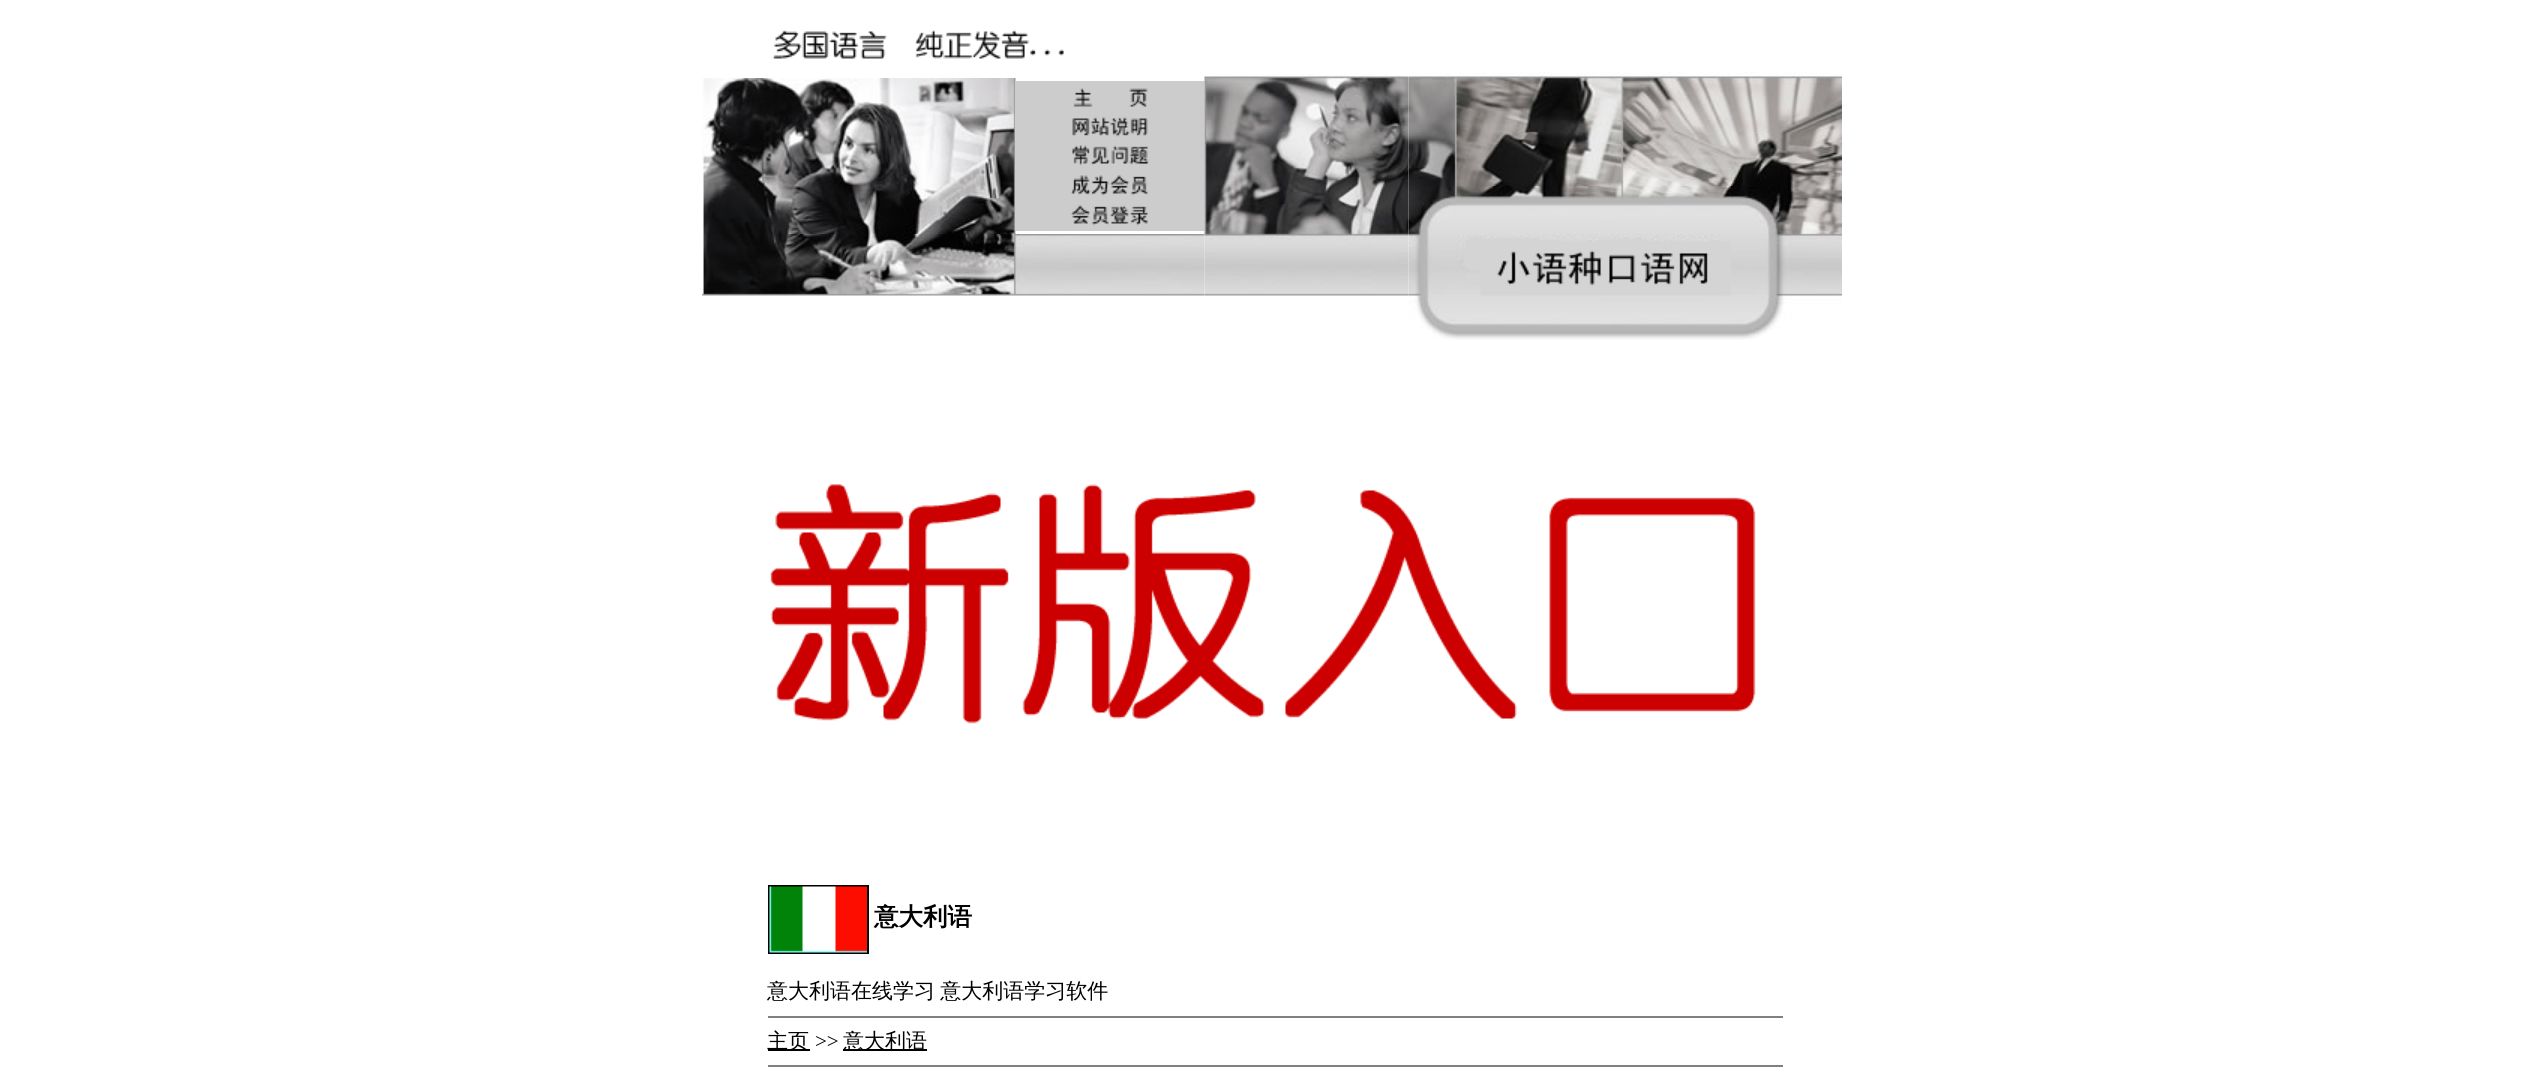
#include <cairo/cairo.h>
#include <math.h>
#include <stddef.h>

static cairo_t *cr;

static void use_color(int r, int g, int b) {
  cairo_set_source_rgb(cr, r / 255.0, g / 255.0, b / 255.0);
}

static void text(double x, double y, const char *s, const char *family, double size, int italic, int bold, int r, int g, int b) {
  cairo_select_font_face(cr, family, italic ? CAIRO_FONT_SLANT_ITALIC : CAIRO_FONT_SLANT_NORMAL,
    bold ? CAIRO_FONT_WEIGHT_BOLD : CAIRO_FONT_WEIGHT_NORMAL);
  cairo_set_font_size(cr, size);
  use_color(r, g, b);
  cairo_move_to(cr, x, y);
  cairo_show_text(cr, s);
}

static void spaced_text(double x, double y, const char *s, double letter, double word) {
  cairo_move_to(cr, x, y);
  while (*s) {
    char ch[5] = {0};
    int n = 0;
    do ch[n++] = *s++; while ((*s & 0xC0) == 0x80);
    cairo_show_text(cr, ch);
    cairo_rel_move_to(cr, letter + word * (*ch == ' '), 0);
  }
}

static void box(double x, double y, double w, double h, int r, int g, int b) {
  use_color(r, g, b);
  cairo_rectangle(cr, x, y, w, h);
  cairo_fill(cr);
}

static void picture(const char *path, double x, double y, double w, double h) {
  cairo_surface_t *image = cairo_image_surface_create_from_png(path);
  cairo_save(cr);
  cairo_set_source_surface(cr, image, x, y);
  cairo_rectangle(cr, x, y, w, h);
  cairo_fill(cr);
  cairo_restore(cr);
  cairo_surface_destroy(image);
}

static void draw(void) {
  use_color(255, 255, 255);
  cairo_paint(cr);
  picture("img_01.png", 772, 29, 292, 30);
  picture("img_02.png", 702, 78, 314, 156);
  picture("img_03.png", 1016, 81, 189, 30);
  picture("img_04.png", 1016, 111, 189, 30);
  picture("img_05.png", 1016, 141, 189, 30);
  picture("img_06.png", 1016, 171, 189, 30);
  picture("img_07.png", 1016, 201, 189, 30);
  picture("img_08.png", 702, 234, 503, 62);
  picture("img_09.png", 1204, 74, 205, 222);
  picture("img_10.png", 1408, 72, 434, 114);
  picture("img_11.png", 1408, 186, 323, 154);
  picture("img_12.png", 1731, 186, 111, 154);
  picture("img_13.png", 770, 484, 986, 240);
  cairo_rectangle(cr, 769, 886, 99, 67);
  use_color(0, 0, 0);
  cairo_stroke(cr);
  picture("img_14.png", 769, 886, 98, 67);
  box(768, 1016, 1015, 2, 128, 128, 128);
  box(768, 1049, 42, 2, 0, 0, 0);
  box(843, 1049, 84, 2, 0, 0, 0);
  box(768, 1065, 1015, 2, 128, 128, 128);
  text(874, 925, "意大利语", "WenQuanYi Zen Hei", 24.5, 0, 1, 0, 0, 0);
  cairo_select_font_face(cr, "WenQuanYi Zen Hei Medium", CAIRO_FONT_SLANT_NORMAL, CAIRO_FONT_WEIGHT_NORMAL);
  cairo_set_font_size(cr, 21);
  spaced_text(767, 998, "意大利语在线学习 意大利语学习软件", 0, -1);
  text(767, 1048, "主页", "WenQuanYi Zen Hei Medium", 21, 0, 0, 0, 0, 0);
  text(815, 1048, ">>", "Liberation Serif", 21, 0, 0, 0, 0, 0);
  text(843, 1048, "意大利语", "WenQuanYi Zen Hei Medium", 21, 0, 0, 0, 0, 0);
}

int main(void) {
  cairo_surface_t *surface = cairo_image_surface_create(CAIRO_FORMAT_RGB24, 2542, 1090);
  cr = cairo_create(surface);
  cairo_font_options_t *options = cairo_font_options_create();
  cairo_font_options_set_hint_metrics(options, CAIRO_HINT_METRICS_OFF);
  cairo_font_options_set_hint_style(options, CAIRO_HINT_STYLE_NONE);
  cairo_set_font_options(cr, options);
  cairo_set_miter_limit(cr, 4);
  draw();
  cairo_surface_write_to_png(surface, "out.png");
  cairo_font_options_destroy(options);
  cairo_destroy(cr);
  cairo_surface_destroy(surface);
  return 0;
}
